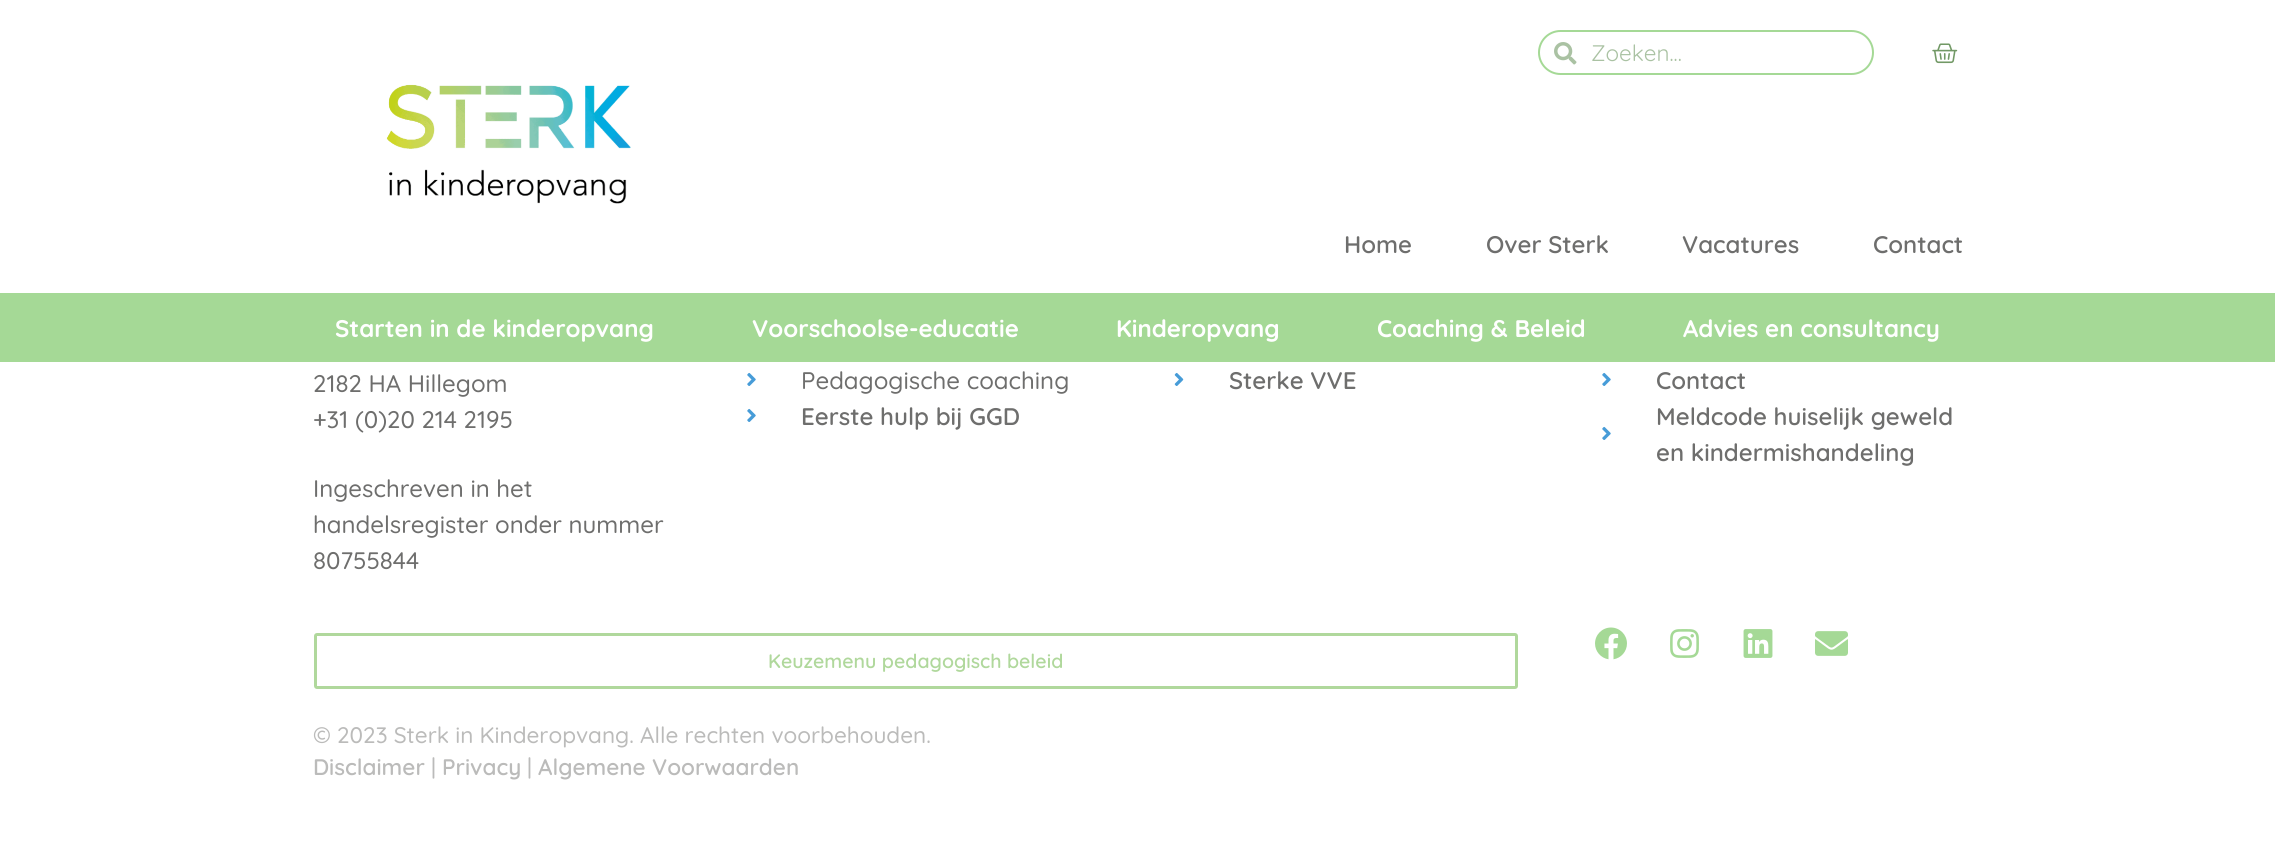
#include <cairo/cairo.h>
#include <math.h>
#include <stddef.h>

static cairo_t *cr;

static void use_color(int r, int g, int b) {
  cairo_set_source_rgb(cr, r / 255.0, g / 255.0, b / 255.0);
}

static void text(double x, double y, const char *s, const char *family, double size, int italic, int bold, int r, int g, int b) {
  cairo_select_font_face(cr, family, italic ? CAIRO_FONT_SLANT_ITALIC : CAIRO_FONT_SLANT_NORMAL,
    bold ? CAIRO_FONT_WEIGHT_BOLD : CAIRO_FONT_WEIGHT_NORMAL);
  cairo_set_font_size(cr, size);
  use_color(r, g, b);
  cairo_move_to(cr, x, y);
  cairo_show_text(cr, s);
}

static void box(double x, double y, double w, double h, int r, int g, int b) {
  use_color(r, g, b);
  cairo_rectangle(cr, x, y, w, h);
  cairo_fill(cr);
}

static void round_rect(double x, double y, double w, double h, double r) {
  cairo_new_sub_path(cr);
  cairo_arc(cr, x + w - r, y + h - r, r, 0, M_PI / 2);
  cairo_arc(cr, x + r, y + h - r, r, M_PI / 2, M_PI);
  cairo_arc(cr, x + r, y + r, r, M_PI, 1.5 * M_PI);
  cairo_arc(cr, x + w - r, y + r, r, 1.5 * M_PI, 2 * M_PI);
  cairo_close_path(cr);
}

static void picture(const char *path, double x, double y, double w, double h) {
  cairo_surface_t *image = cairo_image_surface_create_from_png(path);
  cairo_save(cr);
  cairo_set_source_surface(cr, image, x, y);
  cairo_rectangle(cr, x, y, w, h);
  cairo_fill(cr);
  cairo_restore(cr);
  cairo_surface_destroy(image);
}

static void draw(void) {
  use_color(255, 255, 255);
  cairo_paint(cr);
  round_rect(1539, 31, 334, 43, 21.5);
  use_color(165, 217, 150);
  cairo_stroke(cr);
  picture("img_01.png", 1554, 42, 23, 23);
  picture("img_02.png", 1932, 43, 26, 21);
  picture("img_03.png", 386, 84, 245, 120);
  box(0, 293, 2275, 69, 165, 217, 150);
  picture("img_04.png", 747, 372, 9, 14);
  picture("img_04.png", 747, 408, 9, 14);
  picture("img_05.png", 1174, 372, 10, 14);
  picture("img_04.png", 1602, 372, 9, 14);
  picture("img_04.png", 1602, 426, 9, 14);
  picture("img_06.png", 1595, 627, 32, 33);
  picture("img_07.png", 1670, 629, 29, 29);
  picture("img_08.png", 1743, 629, 30, 29);
  picture("img_09.png", 1815, 631, 33, 25);
  round_rect(315.5, 634.5, 1201, 53, 1.5);
  use_color(176, 216, 156);
  cairo_set_line_width(cr, 3);
  cairo_stroke(cr);
  text(1591, 61, "Zoeken...", "Quicksand", 22.5, 0, 0, 170, 194, 163);
  text(1344, 253, "Home", "Quicksand SemiBold", 24, 0, 0, 110, 110, 109);
  text(1486, 253, "Over Sterk", "Quicksand SemiBold", 24, 0, 0, 110, 110, 109);
  text(1682, 253, "Vacatures", "Quicksand SemiBold", 24, 0, 0, 110, 110, 109);
  text(1873, 253, "Contact", "Quicksand SemiBold", 24, 0, 0, 110, 110, 109);
  text(335, 337, "Starten in de kinderopvang", "Quicksand", 24, 0, 1, 255, 255, 255);
  text(752, 337, "Voorschoolse-educatie", "Quicksand", 24, 0, 1, 255, 255, 255);
  text(1116, 337, "Kinderopvang", "Quicksand", 24, 0, 1, 255, 255, 255);
  text(1377, 337, "Coaching & Beleid", "Quicksand", 24, 0, 1, 255, 255, 255);
  text(1683, 337, "Advies en consultancy", "Quicksand", 24, 0, 1, 255, 255, 255);
  text(313, 392, "2182 HA Hillegom", "Quicksand Medium", 24, 0, 0, 110, 110, 109);
  text(313, 428, "+31 (0)20 214 2195", "Quicksand Medium", 24, 0, 0, 110, 110, 109);
  text(313, 497, "Ingeschreven in het", "Quicksand Medium", 24, 0, 0, 110, 110, 109);
  text(313, 533, "handelsregister onder nummer", "Quicksand Medium", 24, 0, 0, 110, 110, 109);
  text(313, 569, "80755844", "Quicksand Medium", 24, 0, 0, 110, 110, 109);
  text(801, 389, "Pedagogische coaching", "Quicksand Medium", 24, 0, 0, 110, 110, 109);
  text(801, 425, "Eerste hulp bij GGD", "Quicksand SemiBold", 24, 0, 0, 110, 110, 109);
  text(1229, 389, "Sterke VVE", "Quicksand SemiBold", 24, 0, 0, 110, 110, 109);
  text(1656, 389, "Contact", "Quicksand SemiBold", 24, 0, 0, 110, 110, 109);
  text(1656, 425, "Meldcode huiselijk geweld", "Quicksand SemiBold", 24, 0, 0, 110, 110, 109);
  text(1656, 461, "en kindermishandeling", "Quicksand SemiBold", 24, 0, 0, 110, 110, 109);
  text(768, 668, "Keuzemenu pedagogisch beleid", "Quicksand SemiBold", 19.5, 0, 0, 176, 216, 156);
  text(313, 743, "© 2023 Sterk in Kinderopvang. Alle rechten voorbehouden.", "Quicksand Medium", 22.5, 0, 0, 187, 187, 186);
  text(313, 775, "Disclaimer", "Quicksand SemiBold", 22.5, 0, 0, 187, 187, 186);
  text(431, 775, "|", "Quicksand Medium", 22.5, 0, 0, 187, 187, 186);
  text(442, 775, "Privacy", "Quicksand SemiBold", 22.5, 0, 0, 187, 187, 186);
  text(527, 775, "|", "Quicksand Medium", 22.5, 0, 0, 187, 187, 186);
  text(538, 775, "Algemene Voorwaarden", "Quicksand SemiBold", 22.5, 0, 0, 187, 187, 186);
}

int main(void) {
  cairo_surface_t *surface = cairo_image_surface_create(CAIRO_FORMAT_RGB24, 2275, 844);
  cr = cairo_create(surface);
  cairo_font_options_t *options = cairo_font_options_create();
  cairo_font_options_set_hint_metrics(options, CAIRO_HINT_METRICS_OFF);
  cairo_font_options_set_hint_style(options, CAIRO_HINT_STYLE_NONE);
  cairo_set_font_options(cr, options);
  cairo_set_miter_limit(cr, 4);
  draw();
  cairo_surface_write_to_png(surface, "out.png");
  cairo_font_options_destroy(options);
  cairo_destroy(cr);
  cairo_surface_destroy(surface);
  return 0;
}
